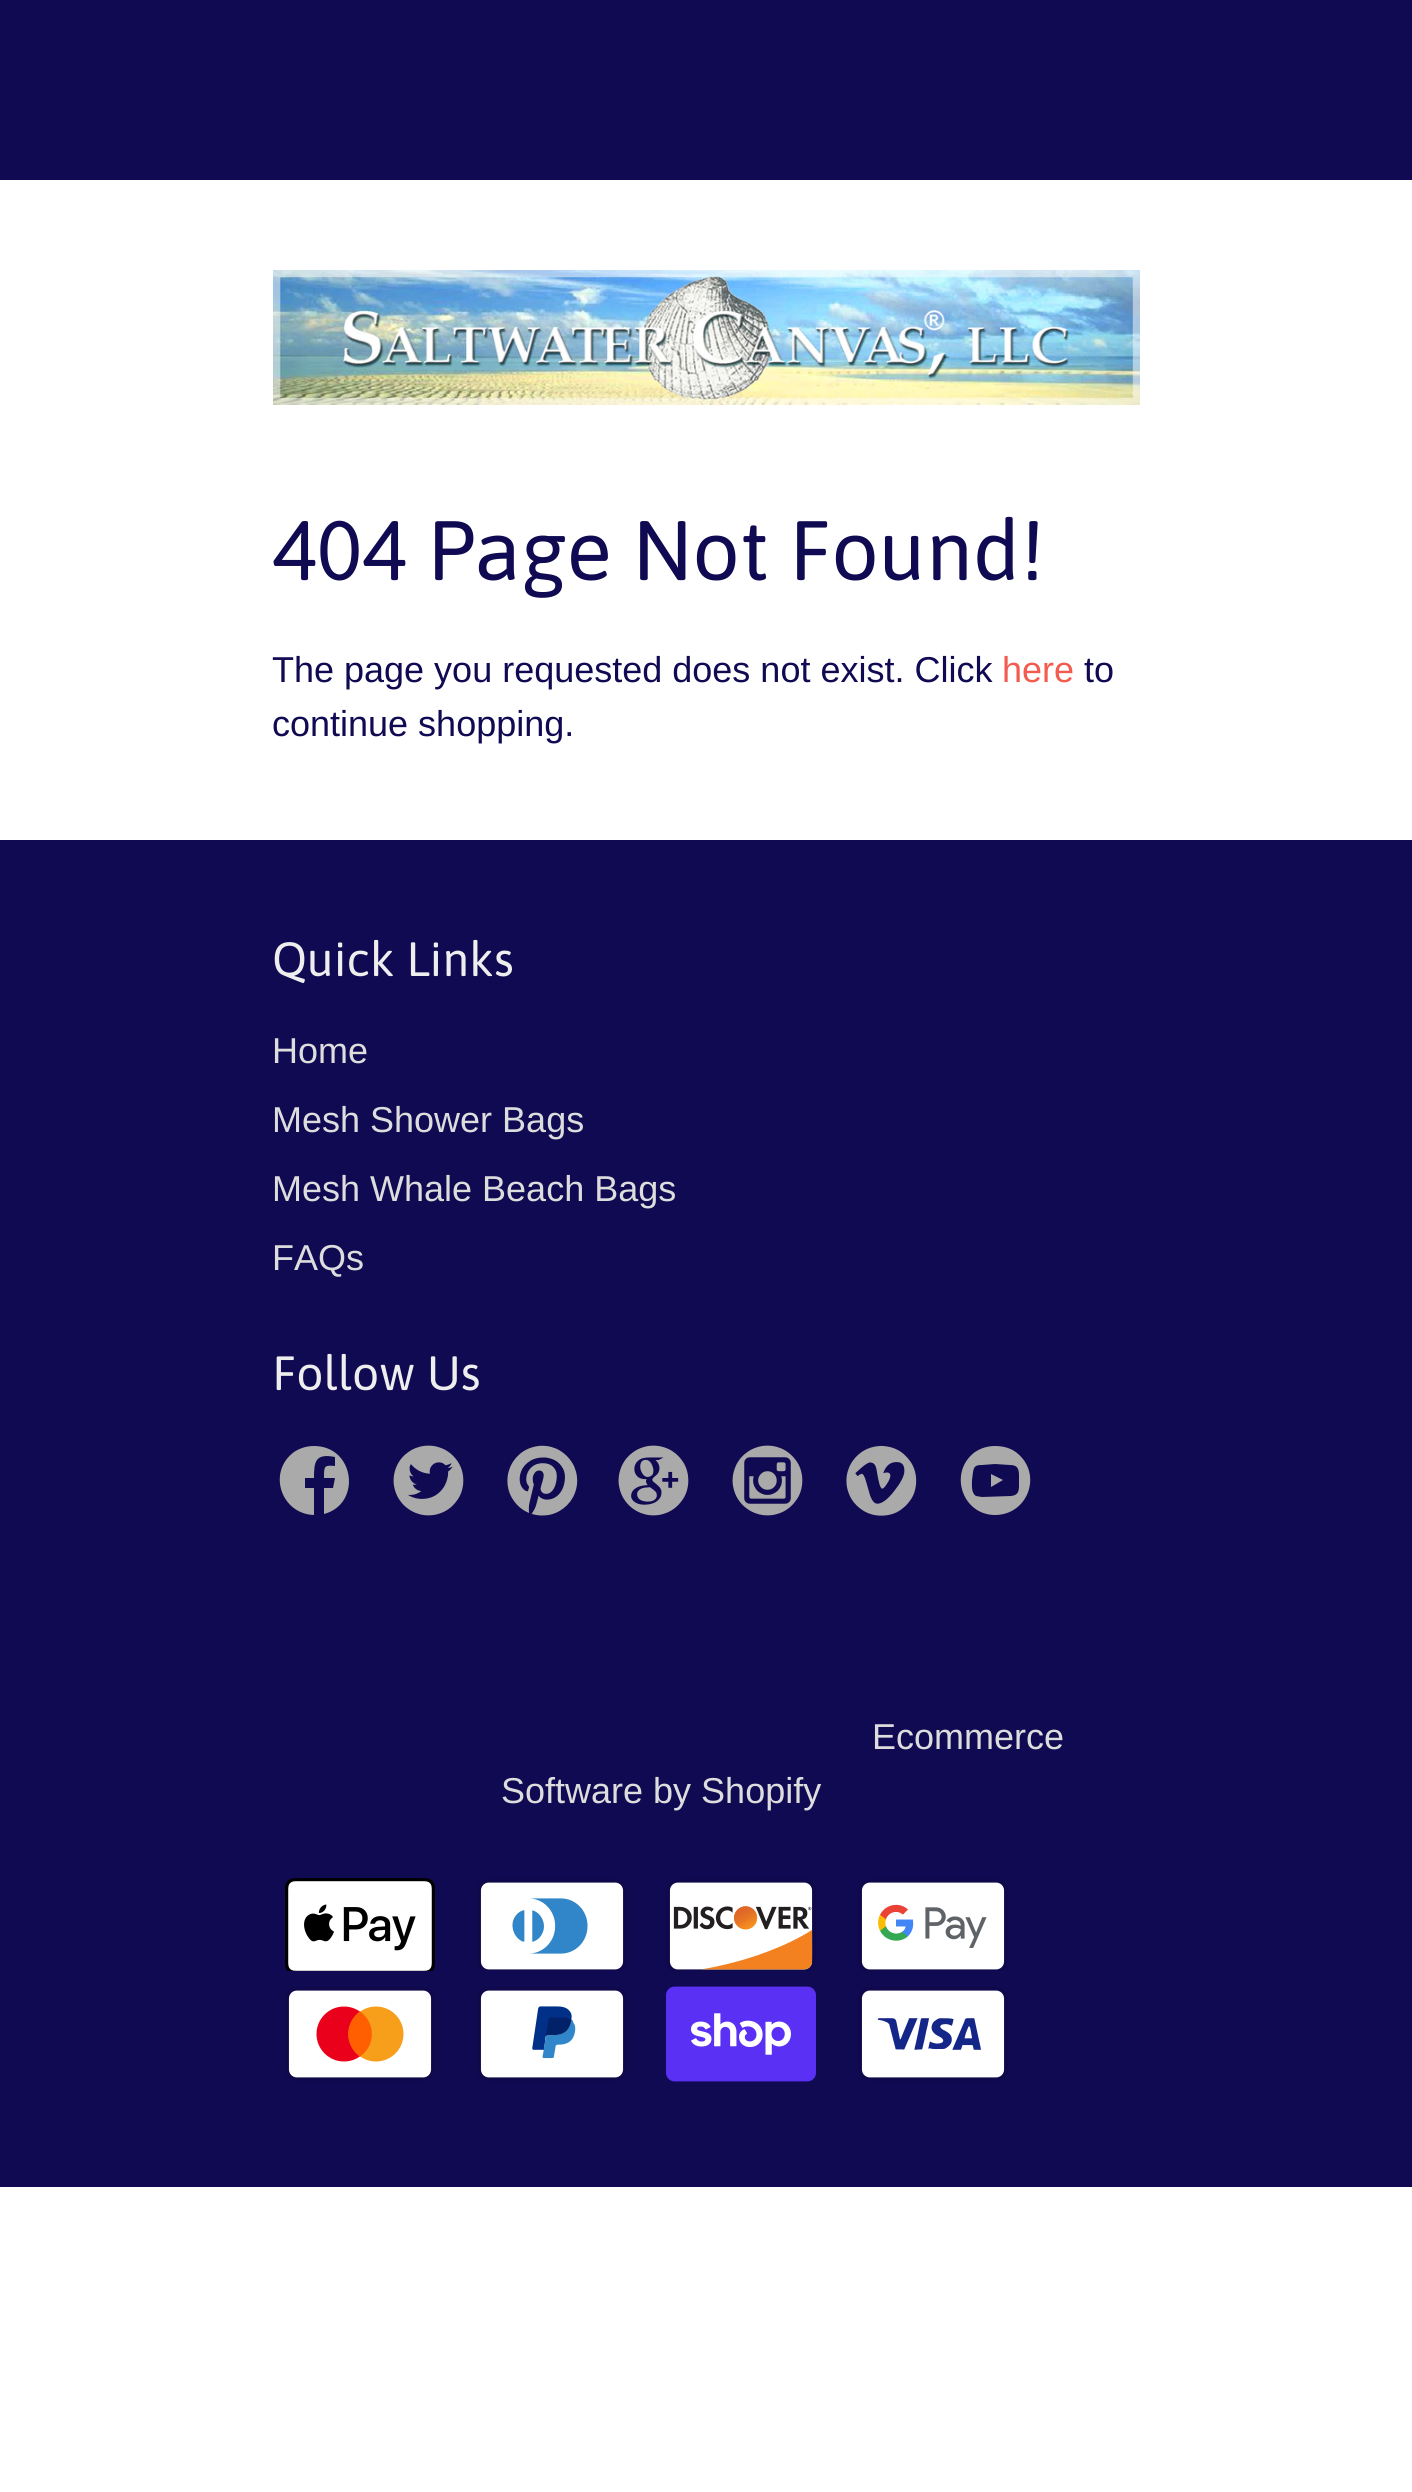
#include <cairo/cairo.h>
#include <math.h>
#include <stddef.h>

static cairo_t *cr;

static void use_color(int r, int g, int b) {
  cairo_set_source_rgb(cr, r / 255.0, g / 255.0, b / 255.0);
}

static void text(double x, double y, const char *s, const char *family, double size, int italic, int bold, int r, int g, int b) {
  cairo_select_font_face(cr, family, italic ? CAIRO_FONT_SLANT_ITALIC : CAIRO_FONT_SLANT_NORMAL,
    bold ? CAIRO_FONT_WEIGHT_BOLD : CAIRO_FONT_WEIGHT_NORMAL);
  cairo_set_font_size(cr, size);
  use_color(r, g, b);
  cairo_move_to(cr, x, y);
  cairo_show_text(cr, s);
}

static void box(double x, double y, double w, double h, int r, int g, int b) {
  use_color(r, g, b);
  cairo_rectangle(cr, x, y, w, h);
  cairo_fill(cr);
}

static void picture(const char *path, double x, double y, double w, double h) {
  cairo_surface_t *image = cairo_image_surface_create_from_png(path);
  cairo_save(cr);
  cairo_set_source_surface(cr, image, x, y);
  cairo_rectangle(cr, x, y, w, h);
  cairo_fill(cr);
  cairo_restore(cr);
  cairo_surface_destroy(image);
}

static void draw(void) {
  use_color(255, 255, 255);
  cairo_paint(cr);
  box(0, 0, 1412, 180, 16, 10, 82);
  picture("img_01.png", 273, 270, 867, 135);
  box(0, 840, 1412, 1347, 16, 10, 82);
  use_color(170, 170, 170);
  cairo_new_path(cr);
  cairo_move_to(cr, 314, 1446);
  cairo_curve_to(cr, 355, 1446, 362, 1504, 324, 1514);
  cairo_line_to(cr, 324, 1488);
  cairo_line_to(cr, 333, 1488);
  cairo_line_to(cr, 335, 1478);
  cairo_line_to(cr, 324, 1478);
  cairo_curve_to(cr, 324, 1466, 324, 1465, 335, 1466);
  cairo_line_to(cr, 335, 1457);
  cairo_curve_to(cr, 315, 1453, 314, 1462, 314, 1478);
  cairo_line_to(cr, 305, 1478);
  cairo_line_to(cr, 305, 1488);
  cairo_line_to(cr, 314, 1488);
  cairo_line_to(cr, 314, 1515);
  cairo_curve_to(cr, 281, 1514, 267, 1472, 294, 1452);
  cairo_curve_to(cr, 300, 1448, 307, 1446, 314, 1446);
  cairo_close_path(cr);
  cairo_fill(cr);
  picture("img_02.png", 393, 1445, 71, 71);
  picture("img_03.png", 507, 1445, 71, 71);
  picture("img_04.png", 618, 1445, 71, 71);
  picture("img_05.png", 732, 1445, 71, 71);
  picture("img_06.png", 846, 1445, 71, 71);
  cairo_new_path(cr);
  cairo_move_to(cr, 1003, 1480);
  cairo_line_to(cr, 991, 1487);
  cairo_line_to(cr, 991, 1474);
  cairo_close_path(cr);
  cairo_move_to(cr, 972, 1480);
  cairo_curve_to(cr, 972, 1485, 971, 1493, 976, 1496);
  cairo_line_to(cr, 982, 1497);
  cairo_line_to(cr, 1011, 1496);
  cairo_curve_to(cr, 1020, 1495, 1019, 1489, 1019, 1481);
  cairo_curve_to(cr, 1019, 1472, 1020, 1465, 1010, 1465);
  cairo_line_to(cr, 995, 1464);
  cairo_line_to(cr, 982, 1465);
  cairo_curve_to(cr, 976, 1465, 974, 1466, 973, 1472);
  cairo_close_path(cr);
  cairo_move_to(cr, 995, 1446);
  cairo_curve_to(cr, 1003, 1446, 1011, 1448, 1017, 1453);
  cairo_curve_to(cr, 1043, 1474, 1028, 1515, 995, 1515);
  cairo_curve_to(cr, 962, 1515, 948, 1472, 975, 1452);
  cairo_curve_to(cr, 981, 1448, 988, 1446, 995, 1446);
  cairo_close_path(cr);
  cairo_fill(cr);
  picture("img_07.png", 285, 1878, 150, 93);
  picture("img_08.png", 477, 1879, 150, 92);
  picture("img_09.png", 666, 1879, 150, 92);
  picture("img_10.png", 858, 1879, 150, 92);
  picture("img_11.png", 285, 1987, 150, 94);
  picture("img_12.png", 477, 1987, 150, 94);
  picture("img_13.png", 666, 1986, 150, 96);
  picture("img_14.png", 858, 1987, 150, 94);
  text(272, 580, "404 Page Not Found!", "Asap", 84, 0, 0, 16, 10, 82);
  text(272, 682, "The page you requested does not exist. Click", "Liberation Sans", 36, 0, 0, 16, 10, 82);
  text(1002, 682, "here", "Liberation Sans", 36, 0, 0, 244, 91, 79);
  text(1084, 682, "to", "Liberation Sans", 36, 0, 0, 16, 10, 82);
  text(272, 736, "continue shopping.", "Liberation Sans", 36, 0, 0, 16, 10, 82);
  text(272, 976, "Quick Links", "Asap", 48, 0, 0, 238, 238, 238);
  text(272, 1063, "Home", "Liberation Sans", 36, 0, 0, 221, 221, 221);
  text(272, 1132, "Mesh Shower Bags", "Liberation Sans", 36, 0, 0, 221, 221, 221);
  text(272, 1201, "Mesh Whale Beach Bags", "Liberation Sans", 36, 0, 0, 221, 221, 221);
  text(272, 1270, "FAQs", "Liberation Sans", 36, 0, 0, 221, 221, 221);
  text(272, 1390, "Follow Us", "Asap", 48, 0, 0, 238, 238, 238);
  text(872, 1749, "Ecommerce", "Liberation Sans", 36, 0, 0, 221, 221, 221);
  text(501, 1803, "Software by Shopify", "Liberation Sans", 36, 0, 0, 221, 221, 221);
}

int main(void) {
  cairo_surface_t *surface = cairo_image_surface_create(CAIRO_FORMAT_RGB24, 1412, 2492);
  cr = cairo_create(surface);
  cairo_font_options_t *options = cairo_font_options_create();
  cairo_font_options_set_hint_metrics(options, CAIRO_HINT_METRICS_OFF);
  cairo_font_options_set_hint_style(options, CAIRO_HINT_STYLE_NONE);
  cairo_set_font_options(cr, options);
  cairo_set_miter_limit(cr, 4);
  draw();
  cairo_surface_write_to_png(surface, "out.png");
  cairo_font_options_destroy(options);
  cairo_destroy(cr);
  cairo_surface_destroy(surface);
  return 0;
}
